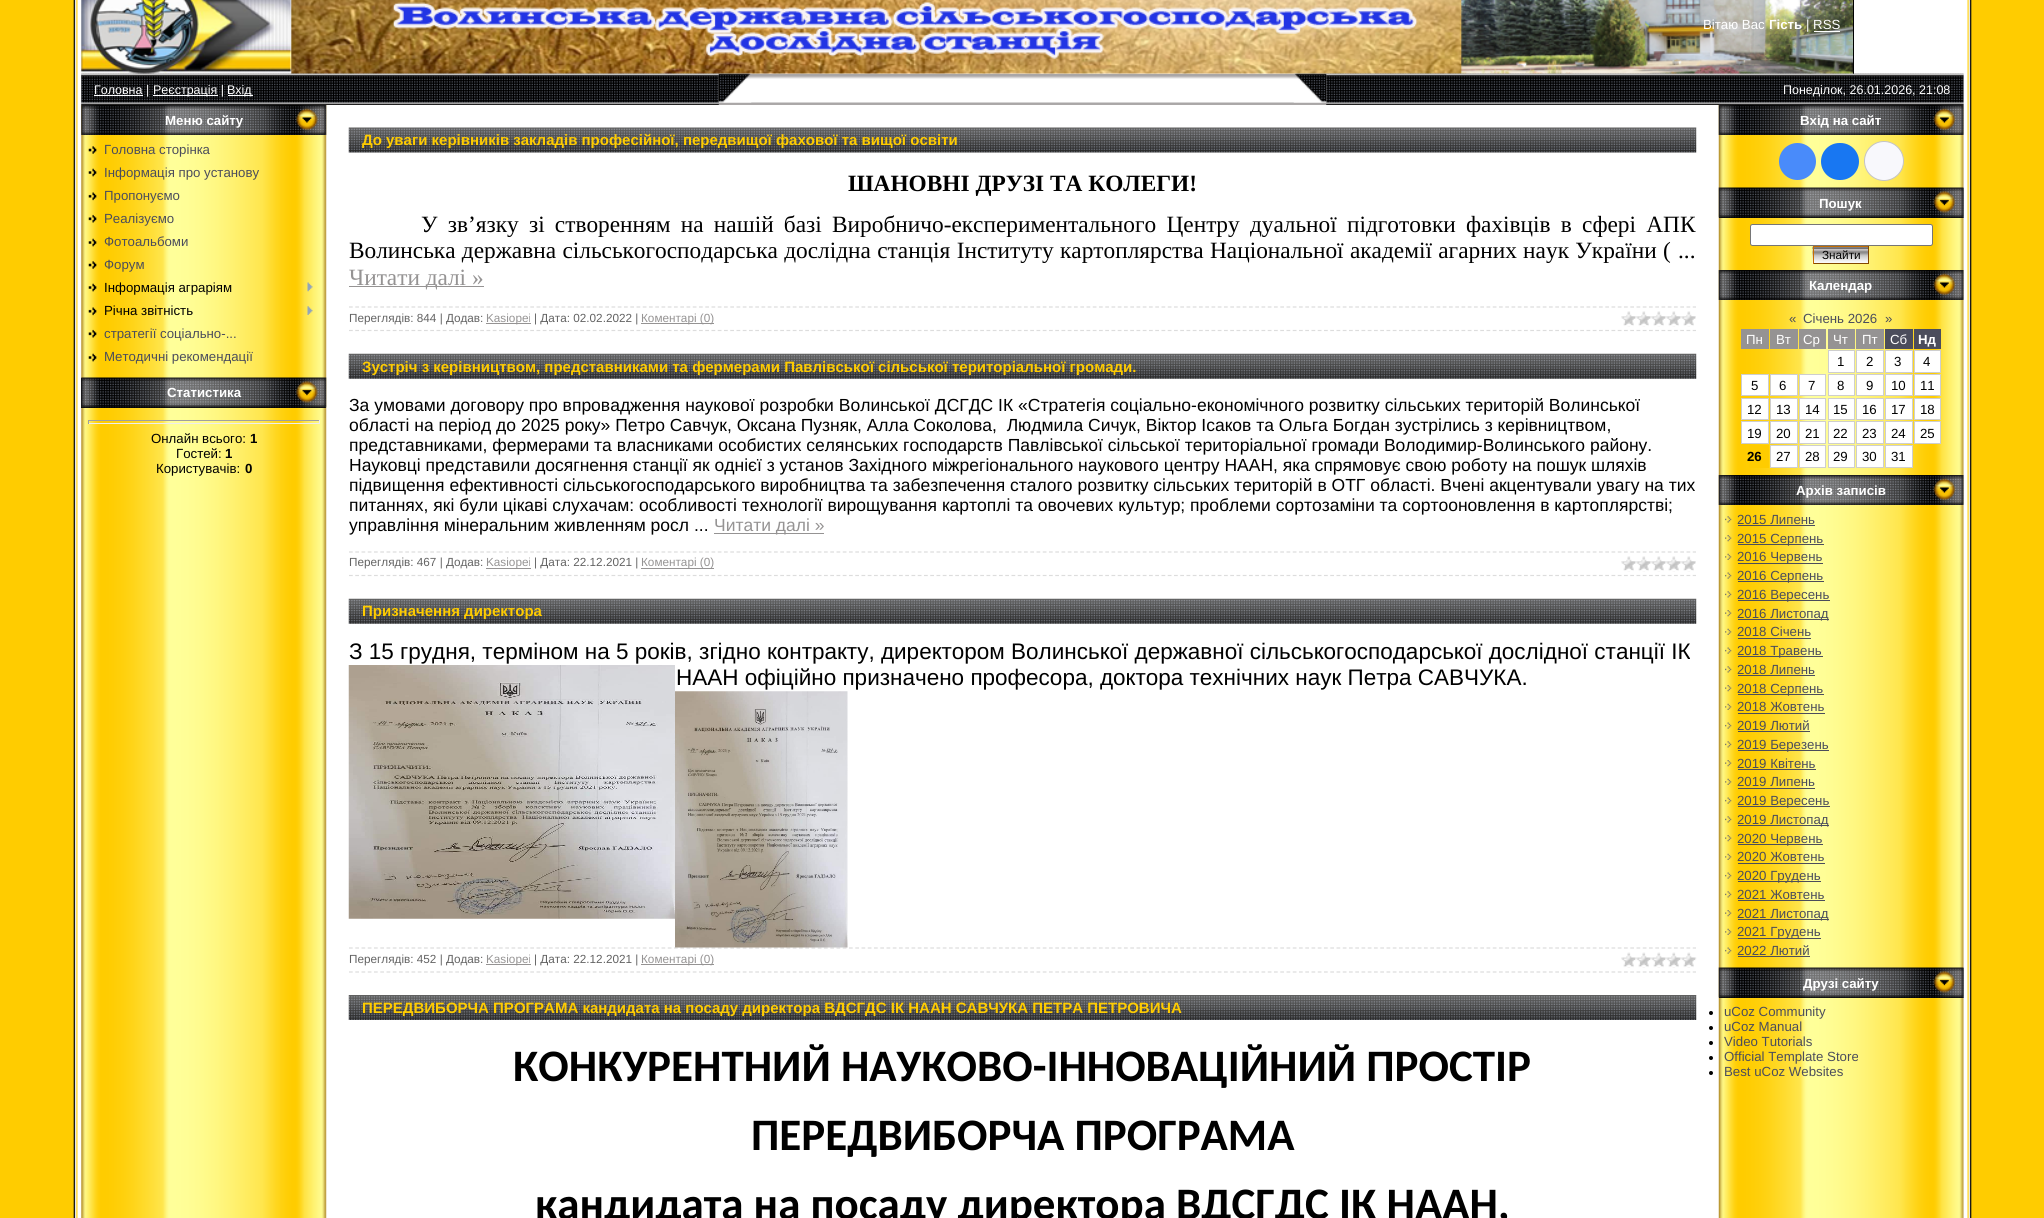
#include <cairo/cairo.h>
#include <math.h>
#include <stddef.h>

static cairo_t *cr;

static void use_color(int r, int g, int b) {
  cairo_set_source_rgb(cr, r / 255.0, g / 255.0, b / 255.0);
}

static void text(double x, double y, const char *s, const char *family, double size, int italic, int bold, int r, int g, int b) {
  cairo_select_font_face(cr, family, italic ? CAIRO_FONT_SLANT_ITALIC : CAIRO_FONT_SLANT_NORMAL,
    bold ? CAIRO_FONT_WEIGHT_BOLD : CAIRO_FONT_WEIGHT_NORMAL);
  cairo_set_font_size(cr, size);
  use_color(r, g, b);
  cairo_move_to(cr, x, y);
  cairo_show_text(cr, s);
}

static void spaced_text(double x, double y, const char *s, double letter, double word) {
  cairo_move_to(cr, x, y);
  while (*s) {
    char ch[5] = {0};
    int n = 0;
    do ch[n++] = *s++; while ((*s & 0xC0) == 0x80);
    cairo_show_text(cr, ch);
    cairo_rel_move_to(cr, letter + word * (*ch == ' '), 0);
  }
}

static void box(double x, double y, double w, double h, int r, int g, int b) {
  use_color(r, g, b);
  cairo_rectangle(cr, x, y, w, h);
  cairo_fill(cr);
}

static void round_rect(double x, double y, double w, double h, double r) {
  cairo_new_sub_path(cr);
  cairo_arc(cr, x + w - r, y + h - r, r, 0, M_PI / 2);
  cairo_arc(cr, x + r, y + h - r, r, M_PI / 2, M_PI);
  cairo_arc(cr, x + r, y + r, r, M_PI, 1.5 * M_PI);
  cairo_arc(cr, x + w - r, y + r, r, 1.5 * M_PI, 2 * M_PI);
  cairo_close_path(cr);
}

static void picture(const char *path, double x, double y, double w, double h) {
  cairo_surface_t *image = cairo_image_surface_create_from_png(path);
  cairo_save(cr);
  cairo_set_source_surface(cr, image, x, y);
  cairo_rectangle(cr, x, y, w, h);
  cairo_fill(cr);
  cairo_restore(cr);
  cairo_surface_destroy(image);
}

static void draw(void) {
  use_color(255, 255, 255);
  cairo_paint(cr);
  box(0, 0, 73, 1218, 255, 204, 0);
  picture("img_01.png", 73, 0, 8, 1218);
  picture("img_02.png", 81, 0, 1772, 74);
  box(1853, 0, 1, 74, 0, 0, 0);
  box(1814, 31, 26, 1, 255, 255, 255);
  picture("img_03.png", 81, 73, 1883, 32);
  picture("img_04.png", 81, 73, 638, 32);
  box(94, 95, 49, 1, 255, 255, 255);
  box(153, 95, 65, 1, 255, 255, 255);
  box(228, 95, 25, 1, 255, 255, 255);
  picture("img_05.png", 718, 73, 34, 30);
  picture("img_07.png", 1326, 73, 638, 32);
  picture("img_06.png", 1293, 73, 34, 30);
  picture("img_08.png", 81, 105, 246, 1113);
  picture("img_09.png", 81, 105, 246, 30);
  picture("img_10.png", 88, 146, 9, 8);
  picture("img_11.png", 88, 168, 9, 9);
  picture("img_12.png", 88, 192, 9, 9);
  picture("img_13.png", 88, 214, 9, 9);
  picture("img_14.png", 88, 238, 9, 9);
  picture("img_10.png", 88, 261, 9, 8);
  picture("img_15.png", 88, 283, 9, 9);
  picture("img_16.png", 307, 282, 6, 10);
  picture("img_12.png", 88, 307, 9, 9);
  picture("img_17.png", 307, 306, 6, 9);
  picture("img_13.png", 88, 329, 9, 9);
  picture("img_15.png", 88, 353, 9, 9);
  box(81, 378, 245, 30, 0, 0, 0);
  picture("img_18.png", 81, 377, 246, 31);
  box(88, 420, 232, 1, 159, 159, 159);
  box(319, 420, 1, 4, 238, 238, 238);
  box(88, 423, 232, 1, 238, 238, 238);
  box(88, 420, 1, 4, 159, 159, 159);
  picture("img_19.png", 348, 127, 1349, 26);
  box(349, 286, 135, 1, 149, 147, 147);
  cairo_new_path(cr);
  cairo_move_to(cr, 349, 307);
  cairo_line_to(cr, 1696, 307);
  use_color(221, 221, 221);
  cairo_set_line_width(cr, 1.2);
  cairo_set_dash(cr, (double[]){3.75, 2.5}, 2, 0);
  cairo_stroke(cr);
  cairo_new_path(cr);
  cairo_move_to(cr, 349, 330.5);
  cairo_line_to(cr, 1696, 330.5);
  cairo_stroke(cr);
  box(486, 323, 45, 1, 149, 147, 147);
  box(641, 323, 73, 1, 149, 147, 147);
  picture("img_20.png", 1621, 311, 75, 16);
  picture("img_21.png", 348, 353, 1349, 26);
  box(714, 533, 110, 1, 149, 147, 147);
  cairo_new_path(cr);
  cairo_move_to(cr, 349, 552);
  cairo_line_to(cr, 1696, 552);
  use_color(221, 221, 221);
  cairo_stroke(cr);
  cairo_new_path(cr);
  cairo_move_to(cr, 349, 575.5);
  cairo_line_to(cr, 1696, 575.5);
  cairo_stroke(cr);
  box(486, 568, 45, 1, 149, 147, 147);
  box(641, 568, 73, 1, 149, 147, 147);
  picture("img_20.png", 1621, 556, 75, 16);
  picture("img_22.png", 348, 598, 1349, 26);
  picture("img_23.png", 348, 665, 327, 254);
  cairo_new_path(cr);
  cairo_move_to(cr, 349, 948);
  cairo_line_to(cr, 1696, 948);
  use_color(221, 221, 221);
  cairo_stroke(cr);
  picture("img_24.png", 675, 691, 173, 257);
  cairo_new_path(cr);
  cairo_move_to(cr, 349, 972);
  cairo_line_to(cr, 1696, 972);
  cairo_stroke(cr);
  box(486, 964, 45, 1, 149, 147, 147);
  box(641, 964, 73, 1, 149, 147, 147);
  picture("img_25.png", 1621, 952, 76, 16);
  picture("img_26.png", 348, 995, 1349, 25);
  picture("img_27.png", 1718, 105, 246, 1113);
  picture("img_28.png", 1718, 105, 246, 30);
  use_color(73, 139, 250);
  cairo_arc(cr, 1797.5, 161.5, 18.5, 0, 2 * M_PI);
  cairo_fill(cr);
  use_color(24, 119, 242);
  round_rect(1821, 143, 38, 37, 18.5);
  cairo_fill(cr);
  use_color(248, 248, 252);
  cairo_arc(cr, 1884, 161, 19.5, 0, 2 * M_PI);
  cairo_fill_preserve(cr);
  use_color(196, 196, 196);
  cairo_set_line_width(cr, 1);
  cairo_set_dash(cr, NULL, 0, 0);
  cairo_stroke(cr);
  box(1719, 188, 245, 30, 0, 0, 0);
  picture("img_29.png", 1718, 187, 246, 31);
  use_color(255, 255, 255);
  round_rect(1750.5, 224.5, 182, 21, 2);
  cairo_fill_preserve(cr);
  use_color(118, 118, 118);
  cairo_stroke(cr);
  picture("img_30.png", 1812, 246, 56, 18);
  box(1813, 246, 56, 1, 198, 109, 0);
  box(1868, 246, 1, 18, 132, 73, 0);
  box(1813, 263, 56, 1, 132, 73, 0);
  box(1813, 246, 1, 18, 198, 109, 0);
  picture("img_28.png", 1718, 270, 246, 30);
  box(1741, 329, 28, 20, 149, 147, 147);
  box(1770, 329, 28, 20, 149, 147, 147);
  box(1799, 329, 27, 20, 149, 147, 147);
  box(1828, 329, 27, 20, 149, 147, 147);
  box(1856, 329, 28, 20, 149, 147, 147);
  box(1885, 329, 28, 20, 75, 77, 92);
  box(1914, 329, 27, 20, 75, 77, 92);
  use_color(255, 255, 255);
  cairo_rectangle(cr, 1828.5, 350.5, 26, 22);
  cairo_fill_preserve(cr);
  use_color(206, 206, 206);
  cairo_stroke(cr);
  use_color(255, 255, 255);
  cairo_rectangle(cr, 1856.5, 350.5, 27, 22);
  cairo_fill_preserve(cr);
  use_color(206, 206, 206);
  cairo_stroke(cr);
  use_color(255, 255, 255);
  cairo_rectangle(cr, 1885.5, 350.5, 27, 22);
  cairo_fill_preserve(cr);
  use_color(206, 206, 206);
  cairo_stroke(cr);
  use_color(255, 255, 255);
  cairo_rectangle(cr, 1914.5, 350.5, 26, 22);
  cairo_fill_preserve(cr);
  use_color(206, 206, 206);
  cairo_stroke(cr);
  use_color(255, 255, 255);
  cairo_rectangle(cr, 1741.5, 374.5, 27, 21);
  cairo_fill_preserve(cr);
  use_color(206, 206, 206);
  cairo_stroke(cr);
  use_color(255, 255, 255);
  cairo_rectangle(cr, 1770.5, 374.5, 27, 21);
  cairo_fill_preserve(cr);
  use_color(206, 206, 206);
  cairo_stroke(cr);
  use_color(255, 255, 255);
  cairo_rectangle(cr, 1799.5, 374.5, 26, 21);
  cairo_fill_preserve(cr);
  use_color(206, 206, 206);
  cairo_stroke(cr);
  use_color(255, 255, 255);
  cairo_rectangle(cr, 1828.5, 374.5, 26, 21);
  cairo_fill_preserve(cr);
  use_color(206, 206, 206);
  cairo_stroke(cr);
  use_color(255, 255, 255);
  cairo_rectangle(cr, 1856.5, 374.5, 27, 21);
  cairo_fill_preserve(cr);
  use_color(206, 206, 206);
  cairo_stroke(cr);
  use_color(255, 255, 255);
  cairo_rectangle(cr, 1885.5, 374.5, 27, 21);
  cairo_fill_preserve(cr);
  use_color(206, 206, 206);
  cairo_stroke(cr);
  use_color(255, 255, 255);
  cairo_rectangle(cr, 1914.5, 374.5, 26, 21);
  cairo_fill_preserve(cr);
  use_color(206, 206, 206);
  cairo_stroke(cr);
  use_color(255, 255, 255);
  cairo_rectangle(cr, 1741.5, 398.5, 27, 21);
  cairo_fill_preserve(cr);
  use_color(206, 206, 206);
  cairo_stroke(cr);
  use_color(255, 255, 255);
  cairo_rectangle(cr, 1770.5, 398.5, 27, 21);
  cairo_fill_preserve(cr);
  use_color(206, 206, 206);
  cairo_stroke(cr);
  use_color(255, 255, 255);
  cairo_rectangle(cr, 1799.5, 398.5, 26, 21);
  cairo_fill_preserve(cr);
  use_color(206, 206, 206);
  cairo_stroke(cr);
  use_color(255, 255, 255);
  cairo_rectangle(cr, 1828.5, 398.5, 26, 21);
  cairo_fill_preserve(cr);
  use_color(206, 206, 206);
  cairo_stroke(cr);
  use_color(255, 255, 255);
  cairo_rectangle(cr, 1856.5, 398.5, 27, 21);
  cairo_fill_preserve(cr);
  use_color(206, 206, 206);
  cairo_stroke(cr);
  use_color(255, 255, 255);
  cairo_rectangle(cr, 1885.5, 398.5, 27, 21);
  cairo_fill_preserve(cr);
  use_color(206, 206, 206);
  cairo_stroke(cr);
  use_color(255, 255, 255);
  cairo_rectangle(cr, 1914.5, 398.5, 26, 21);
  cairo_fill_preserve(cr);
  use_color(206, 206, 206);
  cairo_stroke(cr);
  use_color(255, 255, 255);
  cairo_rectangle(cr, 1741.5, 421.5, 27, 22);
  cairo_fill_preserve(cr);
  use_color(206, 206, 206);
  cairo_stroke(cr);
  use_color(255, 255, 255);
  cairo_rectangle(cr, 1770.5, 421.5, 27, 22);
  cairo_fill_preserve(cr);
  use_color(206, 206, 206);
  cairo_stroke(cr);
  use_color(255, 255, 255);
  cairo_rectangle(cr, 1799.5, 421.5, 26, 22);
  cairo_fill_preserve(cr);
  use_color(206, 206, 206);
  cairo_stroke(cr);
  use_color(255, 255, 255);
  cairo_rectangle(cr, 1828.5, 421.5, 26, 22);
  cairo_fill_preserve(cr);
  use_color(206, 206, 206);
  cairo_stroke(cr);
  use_color(255, 255, 255);
  cairo_rectangle(cr, 1856.5, 421.5, 27, 22);
  cairo_fill_preserve(cr);
  use_color(206, 206, 206);
  cairo_stroke(cr);
  use_color(255, 255, 255);
  cairo_rectangle(cr, 1885.5, 421.5, 27, 22);
  cairo_fill_preserve(cr);
  use_color(206, 206, 206);
  cairo_stroke(cr);
  use_color(255, 255, 255);
  cairo_rectangle(cr, 1914.5, 421.5, 26, 22);
  cairo_fill_preserve(cr);
  use_color(206, 206, 206);
  cairo_stroke(cr);
  box(1749, 445, 20, 23, 255, 204, 0);
  use_color(255, 255, 255);
  cairo_rectangle(cr, 1770.5, 445.5, 27, 22);
  cairo_fill_preserve(cr);
  use_color(206, 206, 206);
  cairo_stroke(cr);
  use_color(255, 255, 255);
  cairo_rectangle(cr, 1799.5, 445.5, 26, 22);
  cairo_fill_preserve(cr);
  use_color(206, 206, 206);
  cairo_stroke(cr);
  use_color(255, 255, 255);
  cairo_rectangle(cr, 1828.5, 445.5, 26, 22);
  cairo_fill_preserve(cr);
  use_color(206, 206, 206);
  cairo_stroke(cr);
  use_color(255, 255, 255);
  cairo_rectangle(cr, 1856.5, 445.5, 27, 22);
  cairo_fill_preserve(cr);
  use_color(206, 206, 206);
  cairo_stroke(cr);
  use_color(255, 255, 255);
  cairo_rectangle(cr, 1885.5, 445.5, 27, 22);
  cairo_fill_preserve(cr);
  use_color(206, 206, 206);
  cairo_stroke(cr);
  picture("img_28.png", 1718, 475, 246, 30);
  picture("img_31.png", 1725, 516, 7, 7);
  box(1738, 525, 77, 1, 75, 77, 92);
  picture("img_32.png", 1725, 535, 7, 7);
  box(1738, 544, 86, 1, 75, 77, 92);
  picture("img_33.png", 1725, 553, 7, 7);
  box(1738, 563, 85, 1, 75, 77, 92);
  picture("img_34.png", 1725, 572, 7, 7);
  box(1738, 581, 86, 1, 75, 77, 92);
  picture("img_31.png", 1725, 591, 7, 7);
  box(1738, 600, 92, 1, 75, 77, 92);
  picture("img_32.png", 1725, 610, 7, 7);
  box(1738, 619, 91, 1, 75, 77, 92);
  picture("img_33.png", 1725, 628, 7, 7);
  box(1738, 638, 73, 1, 75, 77, 92);
  picture("img_34.png", 1725, 647, 7, 7);
  box(1738, 656, 85, 1, 75, 77, 92);
  picture("img_31.png", 1725, 666, 7, 7);
  box(1738, 675, 77, 1, 75, 77, 92);
  picture("img_32.png", 1725, 685, 7, 7);
  box(1738, 694, 86, 1, 75, 77, 92);
  picture("img_33.png", 1725, 703, 7, 7);
  box(1738, 713, 87, 1, 75, 77, 92);
  picture("img_34.png", 1725, 722, 7, 7);
  box(1738, 731, 72, 1, 75, 77, 92);
  picture("img_31.png", 1725, 741, 7, 7);
  box(1738, 750, 91, 1, 75, 77, 92);
  picture("img_32.png", 1725, 760, 7, 7);
  box(1738, 769, 78, 1, 75, 77, 92);
  picture("img_33.png", 1725, 778, 7, 7);
  box(1738, 788, 77, 1, 75, 77, 92);
  picture("img_34.png", 1725, 797, 7, 7);
  box(1738, 806, 92, 1, 75, 77, 92);
  picture("img_31.png", 1725, 816, 7, 7);
  box(1738, 825, 91, 1, 75, 77, 92);
  picture("img_32.png", 1725, 835, 7, 7);
  box(1738, 844, 85, 1, 75, 77, 92);
  picture("img_33.png", 1725, 853, 7, 7);
  box(1738, 863, 87, 1, 75, 77, 92);
  picture("img_34.png", 1725, 872, 7, 7);
  box(1738, 881, 83, 1, 75, 77, 92);
  picture("img_31.png", 1725, 891, 7, 7);
  box(1738, 900, 87, 1, 75, 77, 92);
  picture("img_32.png", 1725, 910, 7, 7);
  box(1738, 919, 91, 1, 75, 77, 92);
  picture("img_33.png", 1725, 928, 7, 7);
  box(1738, 938, 83, 1, 75, 77, 92);
  picture("img_34.png", 1725, 947, 7, 7);
  box(1738, 956, 72, 1, 75, 77, 92);
  box(1719, 968, 245, 30, 0, 0, 0);
  picture("img_29.png", 1718, 967, 246, 31);
  cairo_arc(cr, 1711, 1013, 2, 0, 2 * M_PI);
  cairo_fill(cr);
  cairo_arc(cr, 1711, 1028, 2, 0, 2 * M_PI);
  cairo_fill(cr);
  cairo_arc(cr, 1711, 1043, 2, 0, 2 * M_PI);
  cairo_fill(cr);
  cairo_arc(cr, 1711, 1058, 2, 0, 2 * M_PI);
  cairo_fill(cr);
  cairo_arc(cr, 1711, 1073, 2, 0, 2 * M_PI);
  cairo_fill(cr);
  box(1972, 0, 72, 1218, 255, 204, 0);
  picture("img_35.png", 1963, 0, 9, 1218);
  text(1703, 29, "Вітаю Вас", "Liberation Sans", 13.25, 0, 0, 255, 255, 255);
  text(1769, 29, "Гість", "Liberation Sans", 13.25, 0, 1, 255, 255, 255);
  text(1806, 29, "| RSS", "Liberation Sans", 13.25, 0, 0, 255, 255, 255);
  text(94, 94, "Головна |", "Liberation Sans", 12.5, 0, 0, 255, 255, 255);
  text(153, 94, "Реєстрація |", "Liberation Sans", 12.5, 0, 0, 255, 255, 255);
  text(227, 94, "Вхід", "Liberation Sans", 12.5, 0, 0, 255, 255, 255);
  text(1783, 94, "Понеділок, 26.01.2026, 21:08", "Liberation Sans", 12.5, 0, 0, 255, 255, 255);
  text(165, 125, "Меню сайту", "Liberation Sans", 13.25, 0, 1, 255, 255, 255);
  text(104, 154, "Головна сторінка", "Liberation Sans", 13.25, 0, 0, 75, 77, 92);
  text(104, 177, "Інформація про установу", "Liberation Sans", 13.25, 0, 0, 75, 77, 92);
  text(104, 200, "Пропонуємо", "Liberation Sans", 13.25, 0, 0, 75, 77, 92);
  text(104, 223, "Реалізуємо", "Liberation Sans", 13.25, 0, 0, 75, 77, 92);
  text(104, 246, "Фотоальбоми", "Liberation Sans", 13.25, 0, 0, 75, 77, 92);
  text(104, 269, "Форум", "Liberation Sans", 13.25, 0, 0, 75, 77, 92);
  text(104, 292, "Інформація аграріям", "Liberation Sans", 13.25, 0, 0, 0, 0, 0);
  text(104, 315, "Річна звітність", "Liberation Sans", 13.25, 0, 0, 0, 0, 0);
  text(104, 338, "стратегії соціально-...", "Liberation Sans", 13.25, 0, 0, 75, 77, 92);
  text(104, 361, "Методичні рекомендації", "Liberation Sans", 13.25, 0, 0, 75, 77, 92);
  text(167, 397, "Статистика", "Liberation Sans", 13.25, 0, 1, 255, 255, 255);
  text(151, 443, "Онлайн всього:", "Liberation Sans", 13.25, 0, 0, 0, 0, 0);
  text(250, 443, "1", "Liberation Sans", 13.25, 0, 1, 0, 0, 0);
  text(176, 458, "Гостей:", "Liberation Sans", 13.25, 0, 0, 0, 0, 0);
  text(225, 458, "1", "Liberation Sans", 13.25, 0, 1, 0, 0, 0);
  text(156, 473, "Користувачів:", "Liberation Sans", 13.25, 0, 0, 0, 0, 0);
  text(245, 473, "0", "Liberation Sans", 13.25, 0, 1, 0, 0, 0);
  text(362, 145, "До уваги керівників закладів професійної, передвищої фахової та вищої освіти", "Liberation Sans", 15, 0, 1, 255, 204, 0);
  text(848, 191, "ШАНОВНІ ДРУЗІ ТА КОЛЕГИ!", "Liberation Serif", 23.33, 0, 1, 0, 0, 0);
  cairo_select_font_face(cr, "Liberation Serif", CAIRO_FONT_SLANT_NORMAL, CAIRO_FONT_WEIGHT_NORMAL);
  spaced_text(421, 232, "У зв’язку зі створенням на нашій базі Виробничо-експериментального Центру дуальної підготовки фахівців в сфері АПК", 0, 4.4);
  spaced_text(349, 258, "Волинська державна сільськогосподарська дослідна станція Інституту картоплярства Національної академії агарних наук України (", 0, 0.5);
  text(1678, 258, "...", "Liberation Serif", 23.33, 0, 0, 0, 0, 0);
  text(349, 285, "Читати далі »", "Liberation Serif", 23.33, 0, 0, 149, 147, 147);
  text(349, 322, "Переглядів: 844 | Додав:", "Liberation Sans", 11.75, 0, 0, 99, 99, 99);
  text(486, 322, "Kasiopei", "Liberation Sans", 11.75, 0, 0, 149, 147, 147);
  text(534, 322, "| Дата: 02.02.2022 |", "Liberation Sans", 11.75, 0, 0, 99, 99, 99);
  text(641, 322, "Коментарі (0)", "Liberation Sans", 11.75, 0, 0, 149, 147, 147);
  text(362, 372, "Зустріч з керівництвом, представниками та фермерами Павлівської сільської територіальної громади.", "Liberation Sans", 15, 0, 1, 255, 204, 0);
  text(349, 411, "За умовами договору про впровадження наукової розробки Волинської ДСГДС ІК «Стратегія соціально-економічного розвитку сільських територій Волинської", "Liberation Sans", 17.5, 0, 0, 0, 0, 0);
  text(349, 431, "області на період до 2025 року» Петро Савчук, Оксана Пузняк, Алла Соколова,  Людмила Сичук, Віктор Ісаков та Ольга Богдан зустрілись з керівництвом,", "Liberation Sans", 17.5, 0, 0, 0, 0, 0);
  text(349, 451, "представниками, фермерами та власниками особистих селянських господарств Павлівської сільської територіальної громади Володимир-Волинського району.", "Liberation Sans", 17.5, 0, 0, 0, 0, 0);
  text(349, 471, "Науковці представили досягнення станції як однієї з установ Західного міжрегіонального наукового центру НААН, яка спрямовує свою роботу на пошук шляхів", "Liberation Sans", 17.5, 0, 0, 0, 0, 0);
  text(349, 491, "підвищення ефективності сільськогосподарського виробництва та забезпечення сталого розвитку сільських територій в ОТГ області. Вчені акцентували увагу на тих", "Liberation Sans", 17.5, 0, 0, 0, 0, 0);
  text(349, 511, "питаннях, які були цікаві слухачам: особливості технології вирощування картоплі та овочевих культур; проблеми сортозаміни та сортооновлення в картоплярстві;", "Liberation Sans", 17.5, 0, 0, 0, 0, 0);
  text(349, 531, "управління мінеральним живленням росл ...", "Liberation Sans", 17.5, 0, 0, 0, 0, 0);
  text(714, 531, "Читати далі »", "Liberation Sans", 17.5, 0, 0, 149, 147, 147);
  text(349, 566, "Переглядів: 467 | Додав:", "Liberation Sans", 11.75, 0, 0, 99, 99, 99);
  text(486, 566, "Kasiopei", "Liberation Sans", 11.75, 0, 0, 149, 147, 147);
  text(534, 566, "| Дата: 22.12.2021 |", "Liberation Sans", 11.75, 0, 0, 99, 99, 99);
  text(641, 566, "Коментарі (0)", "Liberation Sans", 11.75, 0, 0, 149, 147, 147);
  text(362, 616, "Призначення директора", "Liberation Sans", 15, 0, 1, 255, 204, 0);
  text(349, 659, "З 15 грудня, терміном на 5 років, згідно контракту, директором Волинської державної сільськогосподарської дослідної станції ІК", "Liberation Sans", 22.5, 0, 0, 0, 0, 0);
  text(676, 685, "НААН офіційно призначено професора, доктора технічних наук Петра САВЧУКА.", "Liberation Sans", 22.5, 0, 0, 0, 0, 0);
  text(349, 963, "Переглядів: 452 | Додав:", "Liberation Sans", 11.75, 0, 0, 99, 99, 99);
  text(486, 963, "Kasiopei", "Liberation Sans", 11.75, 0, 0, 149, 147, 147);
  text(534, 963, "| Дата: 22.12.2021 |", "Liberation Sans", 11.75, 0, 0, 99, 99, 99);
  text(641, 963, "Коментарі (0)", "Liberation Sans", 11.75, 0, 0, 149, 147, 147);
  text(362, 1013, "ПЕРЕДВИБОРЧА ПРОГРАМА кандидата на посаду директора ВДСГДС ІК НААН САВЧУКА ПЕТРА ПЕТРОВИЧА", "Liberation Sans", 15, 0, 1, 255, 204, 0);
  text(513, 1081, "КОНКУРЕНТНИЙ НАУКОВО-ІННОВАЦІЙНИЙ ПРОСТІР", "Carlito", 45, 0, 1, 0, 0, 0);
  text(751, 1150, "ПЕРЕДВИБОРЧА ПРОГРАМА", "Carlito", 45, 0, 1, 0, 0, 0);
  text(535, 1219, "кандидата на посаду директора ВДСГДС ІК НААН,", "Carlito", 45, 0, 1, 0, 0, 0);
  text(1800, 125, "Вхід на сайт", "Liberation Sans", 13.25, 0, 1, 255, 255, 255);
  text(1819, 208, "Пошук", "Liberation Sans", 13.25, 0, 1, 255, 255, 255);
  text(1822, 259, "Знайти", "Liberation Sans", 11.75, 0, 0, 0, 0, 0);
  text(1809, 290, "Календар", "Liberation Sans", 13.25, 0, 1, 255, 255, 255);
  text(1789, 323, "«", "Liberation Sans", 13.25, 0, 0, 75, 77, 92);
  text(1803, 323, "Січень 2026", "Liberation Sans", 13.25, 0, 0, 75, 77, 92);
  text(1885, 323, "»", "Liberation Sans", 13.25, 0, 0, 75, 77, 92);
  text(1746, 344, "Пн", "Liberation Sans", 13.25, 0, 0, 255, 255, 255);
  text(1776, 344, "Вт", "Liberation Sans", 13.25, 0, 0, 255, 255, 255);
  text(1803, 344, "Ср", "Liberation Sans", 13.25, 0, 0, 255, 255, 255);
  text(1833, 344, "Чт", "Liberation Sans", 13.25, 0, 0, 255, 255, 255);
  text(1862, 344, "Пт", "Liberation Sans", 13.25, 0, 0, 255, 255, 255);
  text(1890, 344, "Сб", "Liberation Sans", 13.25, 0, 0, 255, 255, 255);
  text(1918, 344, "Нд", "Liberation Sans", 13.25, 0, 1, 255, 255, 255);
  text(1837, 366, "1", "Liberation Sans", 13.25, 0, 0, 0, 0, 0);
  text(1866, 366, "2", "Liberation Sans", 13.25, 0, 0, 0, 0, 0);
  text(1894, 366, "3", "Liberation Sans", 13.25, 0, 0, 0, 0, 0);
  text(1923, 366, "4", "Liberation Sans", 13.25, 0, 0, 0, 0, 0);
  text(1751, 390, "5", "Liberation Sans", 13.25, 0, 0, 0, 0, 0);
  text(1779, 390, "6", "Liberation Sans", 13.25, 0, 0, 0, 0, 0);
  text(1808, 390, "7", "Liberation Sans", 13.25, 0, 0, 0, 0, 0);
  text(1837, 390, "8", "Liberation Sans", 13.25, 0, 0, 0, 0, 0);
  text(1866, 390, "9", "Liberation Sans", 13.25, 0, 0, 0, 0, 0);
  text(1891, 390, "10", "Liberation Sans", 13.25, 0, 0, 0, 0, 0);
  text(1920, 390, "11", "Liberation Sans", 13.25, 0, 0, 0, 0, 0);
  text(1747, 414, "12", "Liberation Sans", 13.25, 0, 0, 0, 0, 0);
  text(1776, 414, "13", "Liberation Sans", 13.25, 0, 0, 0, 0, 0);
  text(1805, 414, "14", "Liberation Sans", 13.25, 0, 0, 0, 0, 0);
  text(1833, 414, "15", "Liberation Sans", 13.25, 0, 0, 0, 0, 0);
  text(1862, 414, "16", "Liberation Sans", 13.25, 0, 0, 0, 0, 0);
  text(1891, 414, "17", "Liberation Sans", 13.25, 0, 0, 0, 0, 0);
  text(1920, 414, "18", "Liberation Sans", 13.25, 0, 0, 0, 0, 0);
  text(1747, 438, "19", "Liberation Sans", 13.25, 0, 0, 0, 0, 0);
  text(1776, 438, "20", "Liberation Sans", 13.25, 0, 0, 0, 0, 0);
  text(1805, 438, "21", "Liberation Sans", 13.25, 0, 0, 0, 0, 0);
  text(1833, 438, "22", "Liberation Sans", 13.25, 0, 0, 0, 0, 0);
  text(1862, 438, "23", "Liberation Sans", 13.25, 0, 0, 0, 0, 0);
  text(1891, 438, "24", "Liberation Sans", 13.25, 0, 0, 0, 0, 0);
  text(1920, 438, "25", "Liberation Sans", 13.25, 0, 0, 0, 0, 0);
  text(1747, 461, "26", "Liberation Sans", 13.25, 0, 1, 0, 0, 0);
  text(1776, 461, "27", "Liberation Sans", 13.25, 0, 0, 0, 0, 0);
  text(1805, 461, "28", "Liberation Sans", 13.25, 0, 0, 0, 0, 0);
  text(1833, 461, "29", "Liberation Sans", 13.25, 0, 0, 0, 0, 0);
  text(1862, 461, "30", "Liberation Sans", 13.25, 0, 0, 0, 0, 0);
  text(1891, 461, "31", "Liberation Sans", 13.25, 0, 0, 0, 0, 0);
  text(1796, 495, "Архів записів", "Liberation Sans", 13.25, 0, 1, 255, 255, 255);
  text(1737, 524, "2015 Липень", "Liberation Sans", 13.25, 0, 0, 75, 77, 92);
  text(1737, 543, "2015 Серпень", "Liberation Sans", 13.25, 0, 0, 75, 77, 92);
  text(1737, 561, "2016 Червень", "Liberation Sans", 13.25, 0, 0, 75, 77, 92);
  text(1737, 580, "2016 Серпень", "Liberation Sans", 13.25, 0, 0, 75, 77, 92);
  text(1737, 599, "2016 Вересень", "Liberation Sans", 13.25, 0, 0, 75, 77, 92);
  text(1737, 618, "2016 Листопад", "Liberation Sans", 13.25, 0, 0, 75, 77, 92);
  text(1737, 636, "2018 Січень", "Liberation Sans", 13.25, 0, 0, 75, 77, 92);
  text(1737, 655, "2018 Травень", "Liberation Sans", 13.25, 0, 0, 75, 77, 92);
  text(1737, 674, "2018 Липень", "Liberation Sans", 13.25, 0, 0, 75, 77, 92);
  text(1737, 693, "2018 Серпень", "Liberation Sans", 13.25, 0, 0, 75, 77, 92);
  text(1737, 711, "2018 Жовтень", "Liberation Sans", 13.25, 0, 0, 75, 77, 92);
  text(1737, 730, "2019 Лютий", "Liberation Sans", 13.25, 0, 0, 75, 77, 92);
  text(1737, 749, "2019 Березень", "Liberation Sans", 13.25, 0, 0, 75, 77, 92);
  text(1737, 768, "2019 Квітень", "Liberation Sans", 13.25, 0, 0, 75, 77, 92);
  text(1737, 786, "2019 Липень", "Liberation Sans", 13.25, 0, 0, 75, 77, 92);
  text(1737, 805, "2019 Вересень", "Liberation Sans", 13.25, 0, 0, 75, 77, 92);
  text(1737, 824, "2019 Листопад", "Liberation Sans", 13.25, 0, 0, 75, 77, 92);
  text(1737, 843, "2020 Червень", "Liberation Sans", 13.25, 0, 0, 75, 77, 92);
  text(1737, 861, "2020 Жовтень", "Liberation Sans", 13.25, 0, 0, 75, 77, 92);
  text(1737, 880, "2020 Грудень", "Liberation Sans", 13.25, 0, 0, 75, 77, 92);
  text(1737, 899, "2021 Жовтень", "Liberation Sans", 13.25, 0, 0, 75, 77, 92);
  text(1737, 918, "2021 Листопад", "Liberation Sans", 13.25, 0, 0, 75, 77, 92);
  text(1737, 936, "2021 Грудень", "Liberation Sans", 13.25, 0, 0, 75, 77, 92);
  text(1737, 955, "2022 Лютий", "Liberation Sans", 13.25, 0, 0, 75, 77, 92);
  text(1803, 988, "Друзі сайту", "Liberation Sans", 13.25, 0, 1, 255, 255, 255);
  text(1724, 1016, "uCoz Community", "Liberation Sans", 13.25, 0, 0, 75, 77, 92);
  text(1724, 1031, "uCoz Manual", "Liberation Sans", 13.25, 0, 0, 75, 77, 92);
  text(1724, 1046, "Video Tutorials", "Liberation Sans", 13.25, 0, 0, 75, 77, 92);
  text(1724, 1061, "Official Template Store", "Liberation Sans", 13.25, 0, 0, 75, 77, 92);
  text(1724, 1076, "Best uCoz Websites", "Liberation Sans", 13.25, 0, 0, 75, 77, 92);
}

int main(void) {
  cairo_surface_t *surface = cairo_image_surface_create(CAIRO_FORMAT_RGB24, 2044, 1218);
  cr = cairo_create(surface);
  cairo_font_options_t *options = cairo_font_options_create();
  cairo_font_options_set_hint_metrics(options, CAIRO_HINT_METRICS_OFF);
  cairo_font_options_set_hint_style(options, CAIRO_HINT_STYLE_NONE);
  cairo_set_font_options(cr, options);
  cairo_set_miter_limit(cr, 4);
  draw();
  cairo_surface_write_to_png(surface, "out.png");
  cairo_font_options_destroy(options);
  cairo_destroy(cr);
  cairo_surface_destroy(surface);
  return 0;
}
